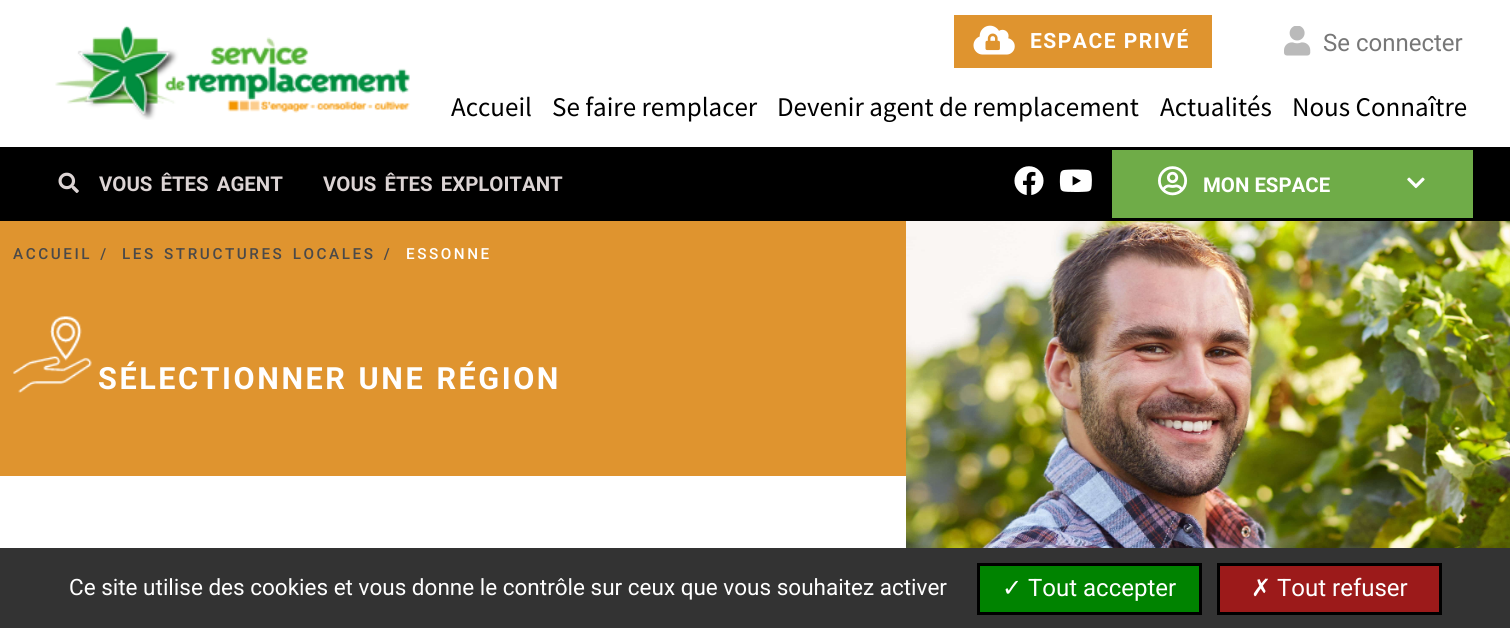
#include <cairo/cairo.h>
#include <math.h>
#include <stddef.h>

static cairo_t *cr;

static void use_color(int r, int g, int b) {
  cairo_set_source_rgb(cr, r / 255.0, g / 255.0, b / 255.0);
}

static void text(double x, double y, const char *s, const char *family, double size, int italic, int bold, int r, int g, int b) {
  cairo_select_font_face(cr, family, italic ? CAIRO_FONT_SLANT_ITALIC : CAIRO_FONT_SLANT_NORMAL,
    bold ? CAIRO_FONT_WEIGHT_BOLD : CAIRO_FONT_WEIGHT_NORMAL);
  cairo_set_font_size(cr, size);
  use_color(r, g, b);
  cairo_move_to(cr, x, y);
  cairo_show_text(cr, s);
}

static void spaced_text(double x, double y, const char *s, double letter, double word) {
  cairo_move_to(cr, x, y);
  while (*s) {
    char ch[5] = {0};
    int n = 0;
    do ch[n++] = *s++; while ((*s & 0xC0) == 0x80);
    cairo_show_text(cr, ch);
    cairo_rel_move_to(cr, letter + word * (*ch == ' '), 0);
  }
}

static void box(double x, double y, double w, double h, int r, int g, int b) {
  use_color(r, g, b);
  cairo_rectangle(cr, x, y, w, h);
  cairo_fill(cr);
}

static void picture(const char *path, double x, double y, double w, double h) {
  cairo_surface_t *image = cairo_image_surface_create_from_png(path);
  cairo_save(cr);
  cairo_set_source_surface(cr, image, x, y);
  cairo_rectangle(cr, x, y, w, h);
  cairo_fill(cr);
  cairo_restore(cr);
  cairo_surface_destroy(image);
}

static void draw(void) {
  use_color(255, 255, 255);
  cairo_paint(cr);
  picture("img_01.png", 55, 25, 355, 95);
  box(954, 15, 258, 53, 223, 148, 47);
  picture("img_02.png", 973, 25, 42, 30);
  picture("img_03.png", 985, 33, 15, 18);
  picture("img_04.png", 1284, 26, 27, 30);
  box(0, 147, 1510, 74, 0, 0, 0);
  picture("img_05.png", 58, 172, 21, 21);
  picture("img_06.png", 1014, 166, 30, 29);
  picture("img_07.png", 1059, 169, 33, 23);
  box(1112, 150, 361, 68, 111, 172, 72);
  picture("img_08.png", 1158, 166, 30, 30);
  picture("img_09.png", 1407, 177, 18, 12);
  box(0, 221, 906, 255, 223, 148, 47);
  picture("img_10.png", 13, 316, 79, 77);
  picture("img_11.png", 906, 221, 604, 327);
  box(0, 548, 1510, 80, 51, 51, 51);
  use_color(0, 131, 0);
  cairo_rectangle(cr, 978.5, 564.5, 222, 49);
  cairo_fill_preserve(cr);
  use_color(0, 0, 0);
  cairo_set_line_width(cr, 3);
  cairo_stroke(cr);
  use_color(156, 26, 26);
  cairo_rectangle(cr, 1218.5, 564.5, 222, 49);
  cairo_fill_preserve(cr);
  use_color(0, 0, 0);
  cairo_stroke(cr);
  cairo_select_font_face(cr, "Roboto", CAIRO_FONT_SLANT_NORMAL, CAIRO_FONT_WEIGHT_BOLD);
  cairo_set_font_size(cr, 21);
  use_color(255, 255, 255);
  spaced_text(1030, 48, "ESPACE PRIVÉ", 1.5, 0);
  text(1323, 51, "Se connecter", "Roboto", 24, 0, 0, 119, 119, 119);
  text(451, 116, "Accueil", "Source Sans Pro", 27, 0, 0, 0, 0, 0);
  text(552, 116, "Se faire remplacer", "Source Sans Pro", 27, 0, 0, 0, 0, 0);
  text(777, 116, "Devenir agent de remplacement", "Source Sans Pro", 27, 0, 0, 0, 0, 0);
  text(1160, 116, "Actualités", "Source Sans Pro", 27, 0, 0, 0, 0, 0);
  text(1292, 116, "Nous Connaître", "Source Sans Pro", 27, 0, 0, 0, 0, 0);
  cairo_select_font_face(cr, "Roboto", CAIRO_FONT_SLANT_NORMAL, CAIRO_FONT_WEIGHT_BOLD);
  cairo_set_font_size(cr, 20.4);
  use_color(220, 212, 212);
  spaced_text(99, 191, "VOUS ÊTES AGENT", 0, 3);
  spaced_text(323, 191, "VOUS ÊTES EXPLOITANT", 0, 3);
  text(1203, 192, "MON ESPACE", "Roboto", 20.4, 0, 1, 255, 255, 255);
  cairo_select_font_face(cr, "Roboto Medium", CAIRO_FONT_SLANT_NORMAL, CAIRO_FONT_WEIGHT_NORMAL);
  cairo_set_font_size(cr, 15.25);
  use_color(74, 73, 73);
  spaced_text(13, 259, "ACCUEIL /", 2.55, 2);
  spaced_text(122, 259, "LES STRUCTURES LOCALES /", 2.55, 2);
  use_color(255, 255, 255);
  spaced_text(406, 259, "ESSONNE", 2.55, 0);
  cairo_select_font_face(cr, "Roboto", CAIRO_FONT_SLANT_NORMAL, CAIRO_FONT_WEIGHT_BOLD);
  cairo_set_font_size(cr, 30.6);
  spaced_text(98, 389, "SÉLECTIONNER UNE RÉGION", 2.55, 1);
  text(69, 595, "Ce site utilise des cookies et vous donne le contrôle sur ceux que vous souhaitez activer", "Roboto", 22.5, 0, 0, 255, 255, 255);
  text(1002, 596, "✓", "DejaVu Sans", 24, 0, 0, 255, 255, 255);
  text(1028, 596, "Tout accepter", "Roboto", 24, 0, 0, 255, 255, 255);
  text(1251, 596, "✗", "DejaVu Sans", 24, 0, 0, 255, 255, 255);
  text(1277, 596, "Tout refuser", "Roboto", 24, 0, 0, 255, 255, 255);
}

int main(void) {
  cairo_surface_t *surface = cairo_image_surface_create(CAIRO_FORMAT_RGB24, 1510, 628);
  cr = cairo_create(surface);
  cairo_font_options_t *options = cairo_font_options_create();
  cairo_font_options_set_hint_metrics(options, CAIRO_HINT_METRICS_OFF);
  cairo_font_options_set_hint_style(options, CAIRO_HINT_STYLE_NONE);
  cairo_set_font_options(cr, options);
  cairo_set_miter_limit(cr, 4);
  draw();
  cairo_surface_write_to_png(surface, "out.png");
  cairo_font_options_destroy(options);
  cairo_destroy(cr);
  cairo_surface_destroy(surface);
  return 0;
}
